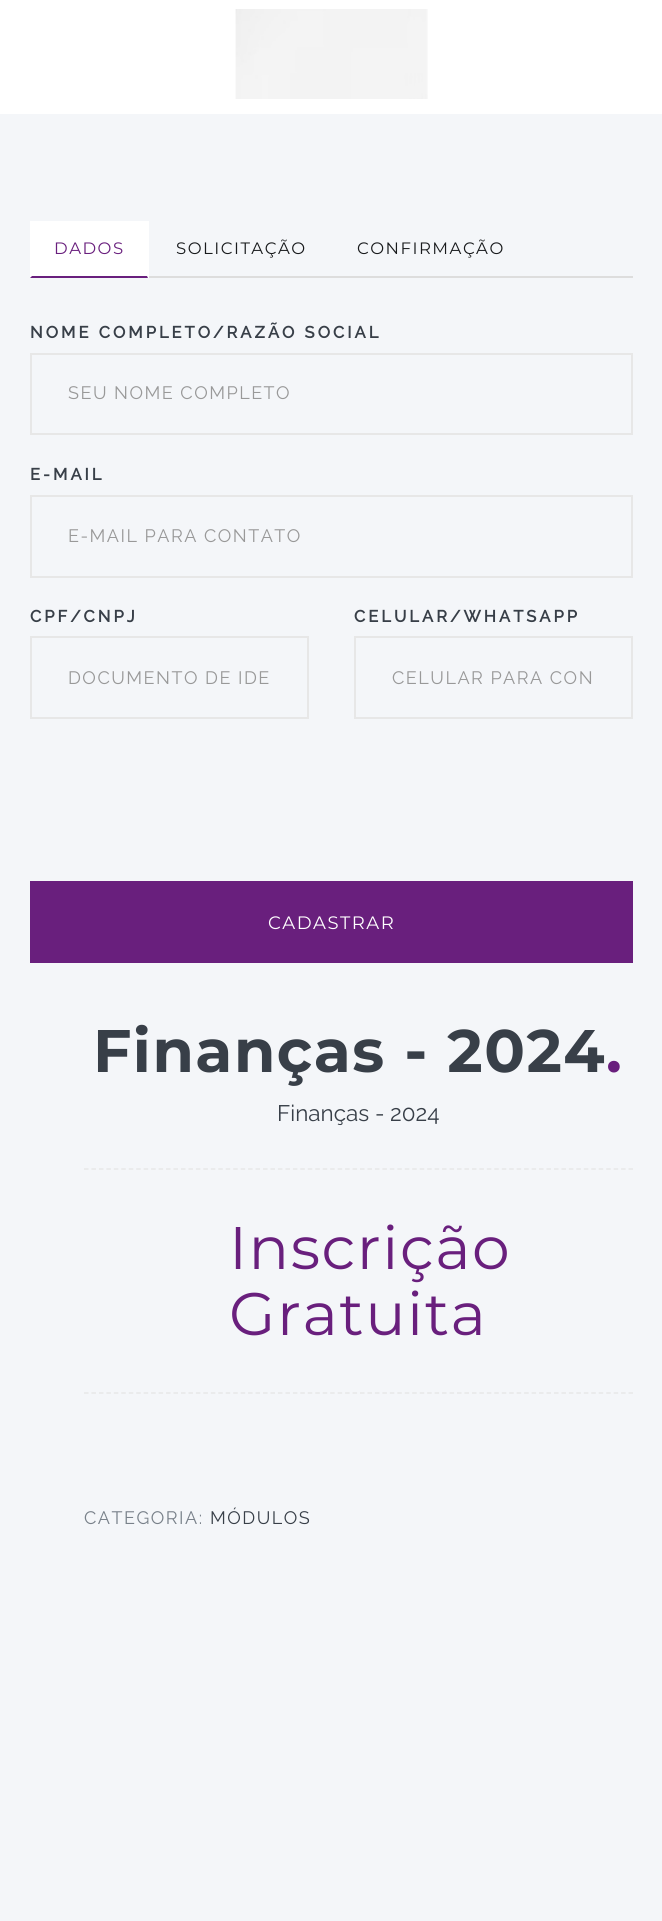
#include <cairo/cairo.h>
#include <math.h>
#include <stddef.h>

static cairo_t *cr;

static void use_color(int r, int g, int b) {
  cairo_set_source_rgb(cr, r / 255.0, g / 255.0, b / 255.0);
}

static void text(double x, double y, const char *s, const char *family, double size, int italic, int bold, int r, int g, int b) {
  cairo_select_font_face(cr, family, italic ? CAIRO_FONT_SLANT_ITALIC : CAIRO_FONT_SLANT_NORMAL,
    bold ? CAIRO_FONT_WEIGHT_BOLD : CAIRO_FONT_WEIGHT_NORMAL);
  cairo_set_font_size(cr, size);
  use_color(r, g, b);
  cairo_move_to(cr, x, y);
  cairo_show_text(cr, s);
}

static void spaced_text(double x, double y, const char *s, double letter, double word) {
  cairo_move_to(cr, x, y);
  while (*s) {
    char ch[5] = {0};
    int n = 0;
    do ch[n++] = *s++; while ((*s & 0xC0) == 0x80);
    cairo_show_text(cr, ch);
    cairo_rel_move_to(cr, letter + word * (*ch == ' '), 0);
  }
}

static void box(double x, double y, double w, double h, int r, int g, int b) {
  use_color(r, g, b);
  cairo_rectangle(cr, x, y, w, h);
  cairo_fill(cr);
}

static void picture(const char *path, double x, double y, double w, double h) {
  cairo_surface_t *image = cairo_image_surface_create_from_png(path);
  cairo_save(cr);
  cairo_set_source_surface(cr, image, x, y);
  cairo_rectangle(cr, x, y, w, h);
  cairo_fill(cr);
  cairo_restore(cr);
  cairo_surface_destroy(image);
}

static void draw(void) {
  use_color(255, 255, 255);
  cairo_paint(cr);
  picture("img_01.png", 235, 9, 193, 90);
  box(0, 114, 662, 1807, 244, 246, 249);
  box(149, 276, 484, 2, 221, 221, 221);
  box(30, 221, 119, 57, 255, 255, 255);
  use_color(105, 31, 125);
  cairo_new_path(cr);
  cairo_move_to(cr, 148, 278);
  cairo_line_to(cr, 30, 278);
  cairo_line_to(cr, 32, 276);
  cairo_line_to(cr, 147, 276);
  cairo_close_path(cr);
  cairo_fill(cr);
  cairo_rectangle(cr, 31, 354, 601, 80);
  use_color(231, 231, 231);
  cairo_stroke(cr);
  cairo_rectangle(cr, 31, 496, 601, 81);
  cairo_stroke(cr);
  cairo_rectangle(cr, 31, 637, 277, 81);
  cairo_stroke(cr);
  cairo_rectangle(cr, 355, 637, 277, 81);
  cairo_stroke(cr);
  box(30, 881, 603, 82, 105, 31, 125);
  cairo_new_path(cr);
  cairo_move_to(cr, 84, 1169);
  cairo_line_to(cr, 633, 1169);
  use_color(231, 231, 231);
  cairo_set_line_width(cr, 1.5);
  cairo_set_dash(cr, (double[]){4.5, 2.96}, 2, 0);
  cairo_stroke(cr);
  cairo_new_path(cr);
  cairo_move_to(cr, 84, 1393);
  cairo_line_to(cr, 633, 1393);
  cairo_stroke(cr);
  cairo_select_font_face(cr, "Montserrat", CAIRO_FONT_SLANT_NORMAL, CAIRO_FONT_WEIGHT_NORMAL);
  cairo_set_font_size(cr, 16.5);
  use_color(105, 31, 125);
  spaced_text(54, 254, "DADOS", 1.5, 0);
  use_color(25, 27, 29);
  spaced_text(176, 254, "SOLICITAÇÃO", 1.5, 0);
  spaced_text(357, 254, "CONFIRMAÇÃO", 1.5, 0);
  cairo_select_font_face(cr, "Raleway", CAIRO_FONT_SLANT_NORMAL, CAIRO_FONT_WEIGHT_BOLD);
  use_color(56, 63, 72);
  spaced_text(30, 338, "NOME COMPLETO/RAZÃO SOCIAL", 3, 0);
  cairo_select_font_face(cr, "Raleway", CAIRO_FONT_SLANT_NORMAL, CAIRO_FONT_WEIGHT_NORMAL);
  cairo_set_font_size(cr, 18);
  use_color(153, 153, 153);
  spaced_text(68, 399, "SEU NOME COMPLETO", 1.5, 0);
  cairo_select_font_face(cr, "Raleway", CAIRO_FONT_SLANT_NORMAL, CAIRO_FONT_WEIGHT_BOLD);
  cairo_set_font_size(cr, 16.5);
  use_color(56, 63, 72);
  spaced_text(30, 480, "E-MAIL", 3, 0);
  cairo_select_font_face(cr, "Raleway", CAIRO_FONT_SLANT_NORMAL, CAIRO_FONT_WEIGHT_NORMAL);
  cairo_set_font_size(cr, 18);
  use_color(153, 153, 153);
  spaced_text(68, 542, "E-MAIL PARA CONTATO", 1.5, 0);
  cairo_select_font_face(cr, "Raleway", CAIRO_FONT_SLANT_NORMAL, CAIRO_FONT_WEIGHT_BOLD);
  cairo_set_font_size(cr, 16.5);
  use_color(56, 63, 72);
  spaced_text(30, 622, "CPF/CNPJ", 3, 0);
  cairo_select_font_face(cr, "Raleway", CAIRO_FONT_SLANT_NORMAL, CAIRO_FONT_WEIGHT_NORMAL);
  cairo_set_font_size(cr, 18);
  use_color(153, 153, 153);
  spaced_text(68, 684, "DOCUMENTO DE IDE", 1.5, 0);
  cairo_select_font_face(cr, "Raleway", CAIRO_FONT_SLANT_NORMAL, CAIRO_FONT_WEIGHT_BOLD);
  cairo_set_font_size(cr, 16.5);
  use_color(56, 63, 72);
  spaced_text(354, 622, "CELULAR/WHATSAPP", 3, 0);
  cairo_select_font_face(cr, "Raleway", CAIRO_FONT_SLANT_NORMAL, CAIRO_FONT_WEIGHT_NORMAL);
  cairo_set_font_size(cr, 18);
  use_color(153, 153, 153);
  spaced_text(392, 684, "CELULAR PARA CON", 1.5, 0);
  cairo_select_font_face(cr, "Montserrat", CAIRO_FONT_SLANT_NORMAL, CAIRO_FONT_WEIGHT_NORMAL);
  use_color(255, 255, 255);
  spaced_text(268, 929, "CADASTRAR", 1.5, 0);
  cairo_select_font_face(cr, "Montserrat", CAIRO_FONT_SLANT_NORMAL, CAIRO_FONT_WEIGHT_BOLD);
  cairo_set_font_size(cr, 60);
  use_color(56, 63, 72);
  spaced_text(93, 1072, "Finanças - 2024", 1.5, 0);
  use_color(105, 31, 125);
  spaced_text(606, 1072, ".", 1.5, 0);
  text(277, 1121, "Finanças - 2024", "Raleway", 22.5, 0, 0, 56, 63, 72);
  cairo_select_font_face(cr, "Montserrat", CAIRO_FONT_SLANT_NORMAL, CAIRO_FONT_WEIGHT_NORMAL);
  cairo_set_font_size(cr, 60);
  use_color(105, 31, 125);
  spaced_text(229, 1269, "Inscrição", 1.5, 0);
  spaced_text(229, 1335, "Gratuita", 1.5, 0);
  cairo_select_font_face(cr, "Raleway", CAIRO_FONT_SLANT_NORMAL, CAIRO_FONT_WEIGHT_NORMAL);
  cairo_set_font_size(cr, 18);
  use_color(121, 129, 138);
  spaced_text(84, 1524, "CATEGORIA:", 1.5, 0);
  use_color(56, 63, 72);
  spaced_text(210, 1524, "MÓDULOS", 1.5, 0);
}

int main(void) {
  cairo_surface_t *surface = cairo_image_surface_create(CAIRO_FORMAT_RGB24, 662, 1921);
  cr = cairo_create(surface);
  cairo_font_options_t *options = cairo_font_options_create();
  cairo_font_options_set_hint_metrics(options, CAIRO_HINT_METRICS_OFF);
  cairo_font_options_set_hint_style(options, CAIRO_HINT_STYLE_NONE);
  cairo_set_font_options(cr, options);
  cairo_set_miter_limit(cr, 4);
  draw();
  cairo_surface_write_to_png(surface, "out.png");
  cairo_font_options_destroy(options);
  cairo_destroy(cr);
  cairo_surface_destroy(surface);
  return 0;
}
